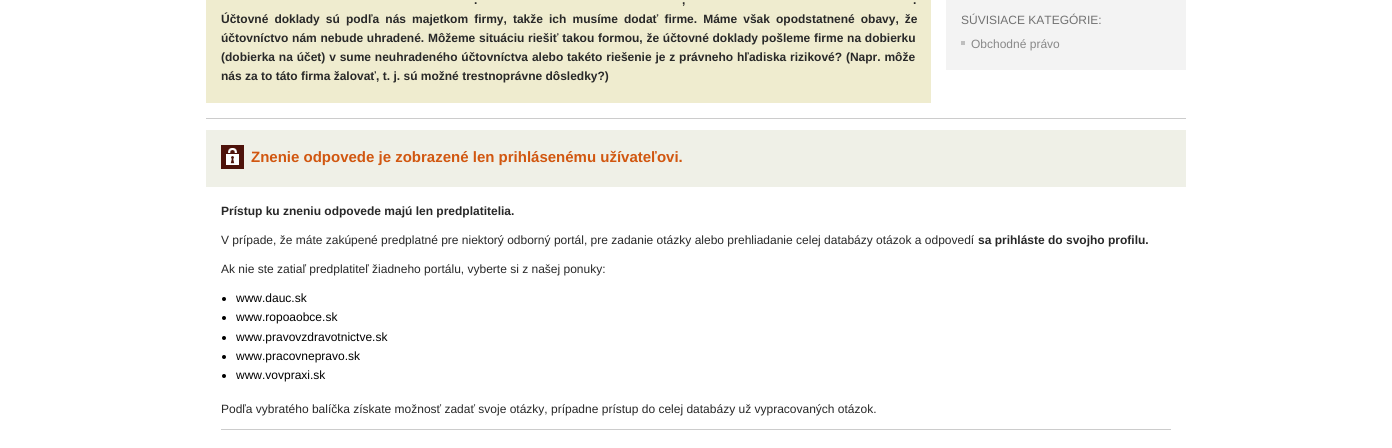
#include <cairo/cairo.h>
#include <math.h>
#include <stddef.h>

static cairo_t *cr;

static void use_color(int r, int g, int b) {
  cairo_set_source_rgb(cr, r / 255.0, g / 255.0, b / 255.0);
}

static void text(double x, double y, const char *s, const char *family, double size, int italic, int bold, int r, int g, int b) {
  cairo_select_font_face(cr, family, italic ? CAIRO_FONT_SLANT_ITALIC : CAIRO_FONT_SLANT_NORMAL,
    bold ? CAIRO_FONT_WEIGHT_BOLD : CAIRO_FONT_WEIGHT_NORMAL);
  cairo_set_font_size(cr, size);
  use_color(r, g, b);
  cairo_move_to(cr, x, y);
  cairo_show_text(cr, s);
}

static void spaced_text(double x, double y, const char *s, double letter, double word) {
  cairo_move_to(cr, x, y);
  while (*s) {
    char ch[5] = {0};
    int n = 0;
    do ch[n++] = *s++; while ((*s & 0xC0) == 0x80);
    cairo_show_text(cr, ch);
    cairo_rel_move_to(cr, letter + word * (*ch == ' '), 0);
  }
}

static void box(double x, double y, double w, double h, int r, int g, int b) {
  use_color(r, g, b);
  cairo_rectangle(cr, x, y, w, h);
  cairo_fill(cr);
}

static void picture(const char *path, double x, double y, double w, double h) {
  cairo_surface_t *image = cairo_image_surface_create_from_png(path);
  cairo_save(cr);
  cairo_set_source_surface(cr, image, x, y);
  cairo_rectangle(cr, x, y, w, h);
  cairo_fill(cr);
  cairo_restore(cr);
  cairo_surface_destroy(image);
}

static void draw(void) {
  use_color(255, 255, 255);
  cairo_paint(cr);
  box(206, 0, 725, 103, 239, 236, 207);
  box(946, 0, 240, 70, 243, 243, 243);
  box(961, 41, 4, 4, 191, 191, 191);
  box(206, 118, 980, 1, 204, 204, 204);
  box(206, 130, 980, 57, 239, 240, 231);
  picture("img_01.png", 221, 145, 23, 24);
  use_color(0, 0, 0);
  cairo_arc(cr, 224, 299, 2, 0, 2 * M_PI);
  cairo_fill(cr);
  cairo_arc(cr, 224, 318, 2, 0, 2 * M_PI);
  cairo_fill(cr);
  cairo_arc(cr, 224, 338, 2, 0, 2 * M_PI);
  cairo_fill(cr);
  cairo_arc(cr, 224, 357, 2, 0, 2 * M_PI);
  cairo_fill(cr);
  cairo_arc(cr, 224, 376, 2, 0, 2 * M_PI);
  cairo_fill(cr);
  box(221, 429, 950, 1, 204, 204, 204);
  cairo_select_font_face(cr, "Liberation Sans", CAIRO_FONT_SLANT_NORMAL, CAIRO_FONT_WEIGHT_BOLD);
  cairo_set_font_size(cr, 12);
  use_color(40, 40, 40);
  spaced_text(474, 4, ".", 0, 1);
  spaced_text(682, 4, ",", 0, 1);
  spaced_text(913, 4, ".", 0, 1);
  spaced_text(221, 23, "Účtovné doklady sú podľa nás majetkom firmy, takže ich musíme dodať firme. Máme však opodstatnené obavy, že", 0, 2.75);
  spaced_text(221, 42, "účtovníctvo nám nebude uhradené. Môžeme situáciu riešiť takou formou, že účtovné doklady pošleme firme na dobierku", 0, 0.4);
  spaced_text(221, 61, "(dobierka na účet) v sume neuhradeného účtovníctva alebo takéto riešenie je z právneho hľadiska rizikové? (Napr. môže", 0, 0.5);
  text(221, 80, "nás za to táto firma žalovať, t. j. sú možné trestnoprávne dôsledky?)", "Liberation Sans", 12, 0, 1, 40, 40, 40);
  text(961, 24, "SÚVISIACE KATEGÓRIE:", "Liberation Sans", 12, 0, 0, 114, 114, 114);
  text(971, 48, "Obchodné právo", "Liberation Sans", 12, 0, 0, 136, 136, 136);
  text(251, 162, "Znenie odpovede je zobrazené len prihlásenému užívateľovi.", "Liberation Sans", 15, 0, 1, 209, 87, 16);
  text(221, 215, "Prístup ku zneniu odpovede majú len predplatitelia.", "Liberation Sans", 12, 0, 1, 40, 40, 40);
  text(221, 244, "V prípade, že máte zakúpené predplatné pre niektorý odborný portál, pre zadanie otázky alebo prehliadanie celej databázy otázok a odpovedí", "Liberation Sans", 12, 0, 0, 40, 40, 40);
  text(978, 244, "sa prihláste do svojho profilu.", "Liberation Sans", 12, 0, 1, 40, 40, 40);
  text(221, 273, "Ak nie ste zatiaľ predplatiteľ žiadneho portálu, vyberte si z našej ponuky:", "Liberation Sans", 12, 0, 0, 40, 40, 40);
  text(236, 302, "www.dauc.sk", "Liberation Sans", 12, 0, 0, 0, 0, 0);
  text(236, 321, "www.ropoaobce.sk", "Liberation Sans", 12, 0, 0, 0, 0, 0);
  text(236, 341, "www.pravovzdravotnictve.sk", "Liberation Sans", 12, 0, 0, 0, 0, 0);
  text(236, 360, "www.pracovnepravo.sk", "Liberation Sans", 12, 0, 0, 0, 0, 0);
  text(236, 379, "www.vovpraxi.sk", "Liberation Sans", 12, 0, 0, 0, 0, 0);
  text(221, 413, "Podľa vybratého balíčka získate možnosť zadať svoje otázky, prípadne prístup do celej databázy už vypracovaných otázok.", "Liberation Sans", 12, 0, 0, 40, 40, 40);
}

int main(void) {
  cairo_surface_t *surface = cairo_image_surface_create(CAIRO_FORMAT_RGB24, 1392, 448);
  cr = cairo_create(surface);
  cairo_font_options_t *options = cairo_font_options_create();
  cairo_font_options_set_hint_metrics(options, CAIRO_HINT_METRICS_OFF);
  cairo_font_options_set_hint_style(options, CAIRO_HINT_STYLE_NONE);
  cairo_set_font_options(cr, options);
  cairo_set_miter_limit(cr, 4);
  draw();
  cairo_surface_write_to_png(surface, "out.png");
  cairo_font_options_destroy(options);
  cairo_destroy(cr);
  cairo_surface_destroy(surface);
  return 0;
}
